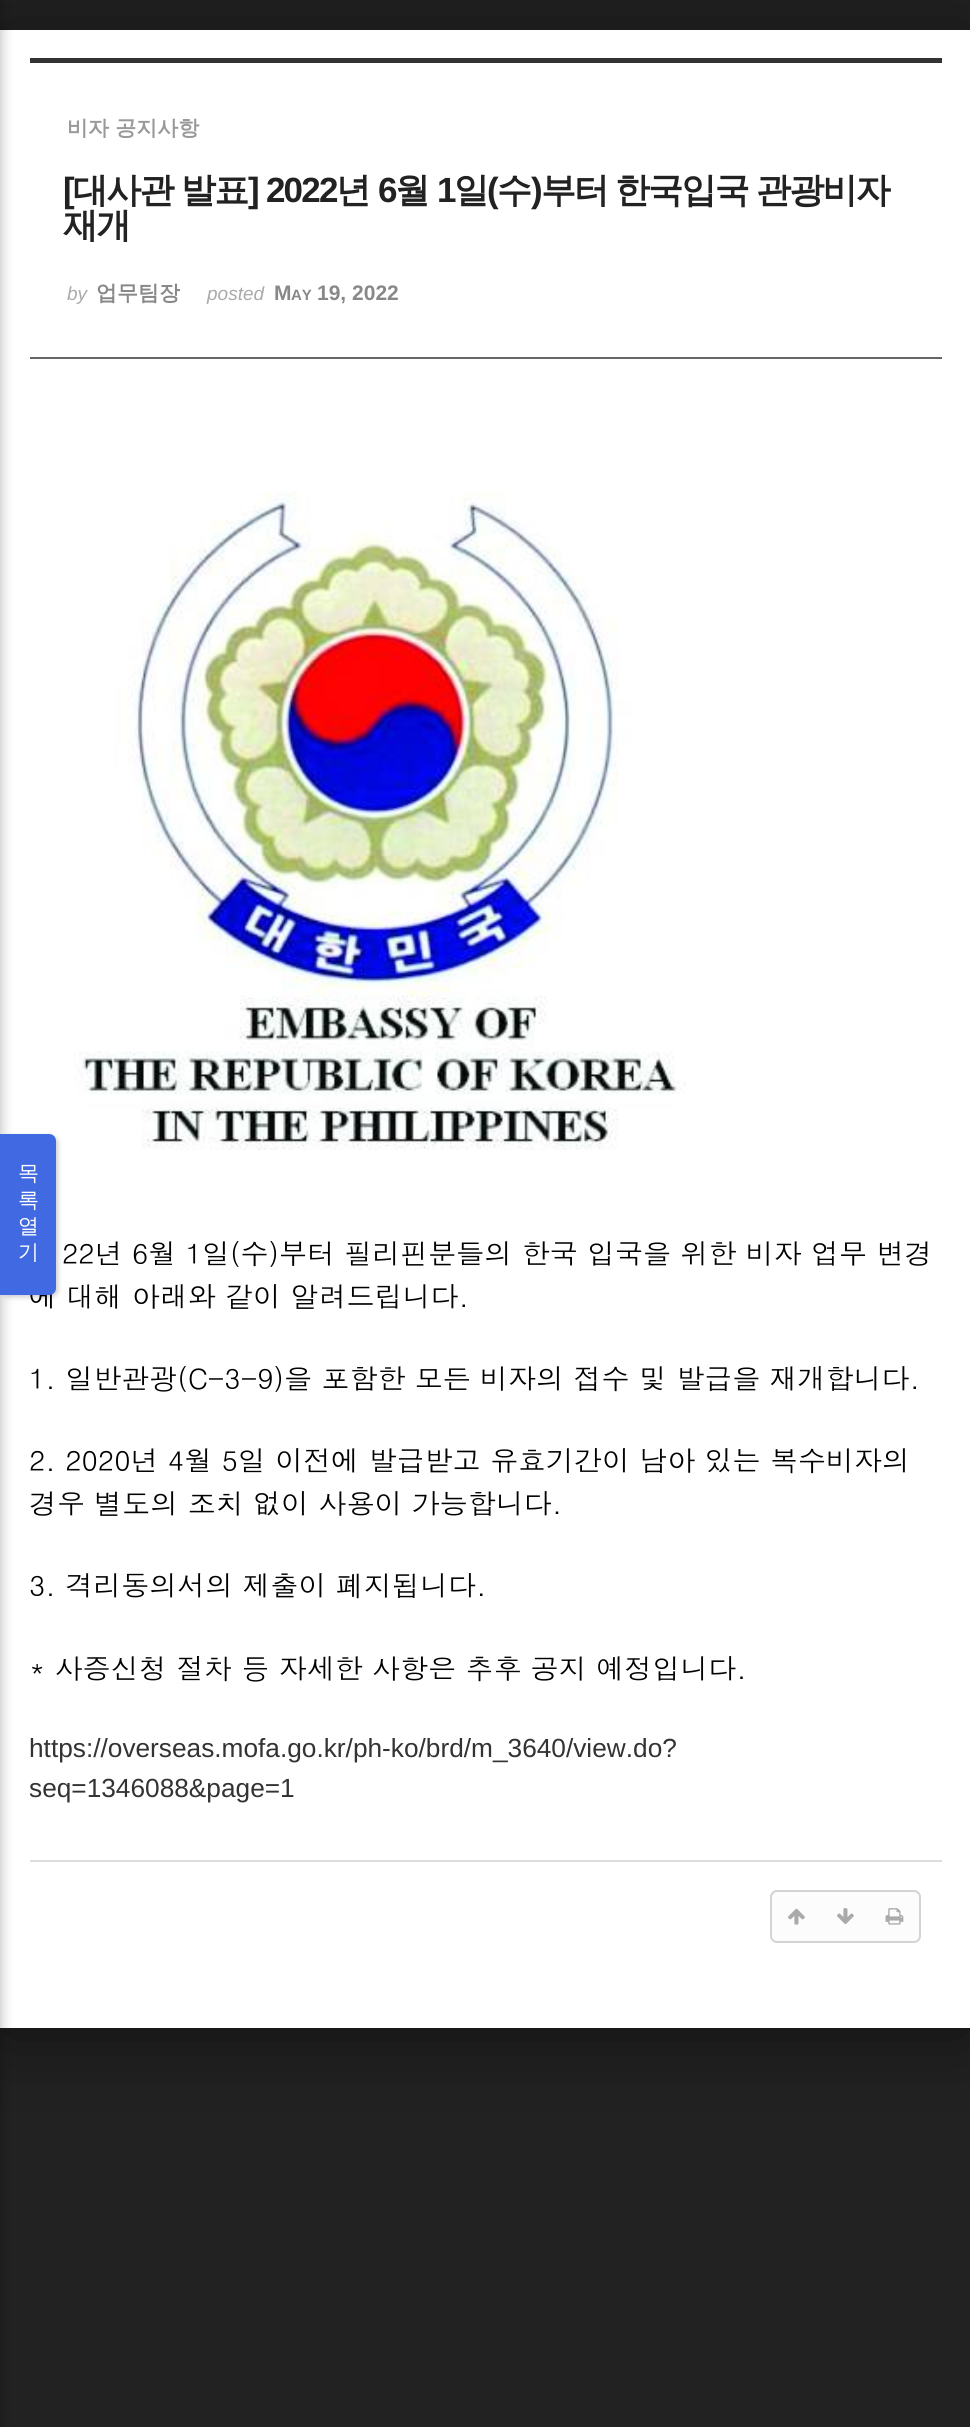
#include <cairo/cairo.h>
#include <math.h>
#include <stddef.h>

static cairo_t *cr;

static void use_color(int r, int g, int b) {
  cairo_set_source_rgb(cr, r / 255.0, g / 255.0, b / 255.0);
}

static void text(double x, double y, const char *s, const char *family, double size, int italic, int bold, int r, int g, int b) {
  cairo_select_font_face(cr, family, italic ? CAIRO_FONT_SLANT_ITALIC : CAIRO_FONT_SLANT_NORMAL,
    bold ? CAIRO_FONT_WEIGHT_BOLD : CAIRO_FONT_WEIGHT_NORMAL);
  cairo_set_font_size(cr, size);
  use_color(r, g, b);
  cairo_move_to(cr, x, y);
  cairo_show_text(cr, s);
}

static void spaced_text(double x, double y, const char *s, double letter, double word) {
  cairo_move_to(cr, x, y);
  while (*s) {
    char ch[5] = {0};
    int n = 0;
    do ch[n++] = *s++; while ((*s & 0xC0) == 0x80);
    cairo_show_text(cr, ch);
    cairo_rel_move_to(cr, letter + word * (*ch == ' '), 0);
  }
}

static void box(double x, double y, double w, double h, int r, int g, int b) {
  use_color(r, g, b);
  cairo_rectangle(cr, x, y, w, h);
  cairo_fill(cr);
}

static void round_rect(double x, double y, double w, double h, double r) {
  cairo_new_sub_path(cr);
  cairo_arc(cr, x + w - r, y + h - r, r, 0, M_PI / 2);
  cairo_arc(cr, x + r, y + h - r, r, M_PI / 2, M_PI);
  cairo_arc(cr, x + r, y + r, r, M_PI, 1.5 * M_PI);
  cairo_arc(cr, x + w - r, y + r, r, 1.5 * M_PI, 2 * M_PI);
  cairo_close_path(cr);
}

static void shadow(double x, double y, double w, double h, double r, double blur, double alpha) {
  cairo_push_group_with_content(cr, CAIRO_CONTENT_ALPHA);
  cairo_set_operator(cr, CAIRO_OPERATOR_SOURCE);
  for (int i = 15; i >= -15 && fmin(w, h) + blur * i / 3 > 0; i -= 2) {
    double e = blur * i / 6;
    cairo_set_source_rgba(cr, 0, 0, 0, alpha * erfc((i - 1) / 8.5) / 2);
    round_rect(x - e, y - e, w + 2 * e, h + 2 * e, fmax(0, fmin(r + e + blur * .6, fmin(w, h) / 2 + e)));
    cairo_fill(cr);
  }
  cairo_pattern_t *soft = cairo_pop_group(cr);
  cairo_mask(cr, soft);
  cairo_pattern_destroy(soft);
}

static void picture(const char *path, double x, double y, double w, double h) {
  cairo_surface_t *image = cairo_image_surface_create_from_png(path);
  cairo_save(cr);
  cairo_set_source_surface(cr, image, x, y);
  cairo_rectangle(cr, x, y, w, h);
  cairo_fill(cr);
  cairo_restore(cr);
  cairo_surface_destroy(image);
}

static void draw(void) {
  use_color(34, 34, 34);
  cairo_paint(cr);
  use_color(0, 0, 0);
  shadow(0, 37, 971, 1998, 0, 42, 0.5);
  box(0, 30, 970, 1998, 255, 255, 255);
  use_color(0, 0, 0);
  shadow(-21, 0, 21, 2427, 0, 7, 0.3);
  shadow(2, 1136, 56, 161, 7, 2.5, 0.2);
  box(30, 58, 912, 5, 51, 51, 51);
  box(30, 357, 912, 2, 102, 102, 102);
  picture("img_01.png", 74, 491, 612, 659);
  box(30, 1860, 912, 2, 221, 221, 221);
  use_color(252, 252, 252);
  round_rect(771, 1891, 149, 51, 6);
  cairo_fill_preserve(cr);
  use_color(211, 211, 211);
  cairo_stroke(cr);
  picture("img_02.png", 788, 1908, 17, 17);
  picture("img_03.png", 837, 1908, 17, 16);
  picture("img_04.png", 885, 1908, 19, 17);
  text(67, 135, "비자 공지사항", "WenQuanYi Zen Hei", 21, 0, 1, 153, 153, 153);
  cairo_select_font_face(cr, "Liberation Sans", CAIRO_FONT_SLANT_NORMAL, CAIRO_FONT_WEIGHT_BOLD);
  cairo_set_font_size(cr, 35);
  use_color(34, 34, 34);
  spaced_text(63, 202, "[", -1.75, 0);
  cairo_select_font_face(cr, "WenQuanYi Zen Hei", CAIRO_FONT_SLANT_NORMAL, CAIRO_FONT_WEIGHT_BOLD);
  spaced_text(73, 202, "대사관", -1.75, 0);
  spaced_text(181, 202, "발표", -1.75, 0);
  cairo_select_font_face(cr, "Liberation Sans", CAIRO_FONT_SLANT_NORMAL, CAIRO_FONT_WEIGHT_BOLD);
  spaced_text(248, 202, "] 2022", -1.75, 0);
  cairo_select_font_face(cr, "WenQuanYi Zen Hei", CAIRO_FONT_SLANT_NORMAL, CAIRO_FONT_WEIGHT_BOLD);
  spaced_text(336, 202, "년", -1.75, 0);
  cairo_select_font_face(cr, "Liberation Sans", CAIRO_FONT_SLANT_NORMAL, CAIRO_FONT_WEIGHT_BOLD);
  spaced_text(378, 202, "6", -1.75, 0);
  cairo_select_font_face(cr, "WenQuanYi Zen Hei", CAIRO_FONT_SLANT_NORMAL, CAIRO_FONT_WEIGHT_BOLD);
  spaced_text(395, 202, "월", -1.75, 0);
  cairo_select_font_face(cr, "Liberation Sans", CAIRO_FONT_SLANT_NORMAL, CAIRO_FONT_WEIGHT_BOLD);
  spaced_text(437, 202, "1", -1.75, 0);
  cairo_select_font_face(cr, "WenQuanYi Zen Hei", CAIRO_FONT_SLANT_NORMAL, CAIRO_FONT_WEIGHT_BOLD);
  spaced_text(454, 202, "일", -1.75, 0);
  cairo_select_font_face(cr, "Liberation Sans", CAIRO_FONT_SLANT_NORMAL, CAIRO_FONT_WEIGHT_BOLD);
  spaced_text(487, 202, "(", -1.75, 0);
  cairo_select_font_face(cr, "WenQuanYi Zen Hei", CAIRO_FONT_SLANT_NORMAL, CAIRO_FONT_WEIGHT_BOLD);
  spaced_text(497, 202, "수", -1.75, 0);
  cairo_select_font_face(cr, "Liberation Sans", CAIRO_FONT_SLANT_NORMAL, CAIRO_FONT_WEIGHT_BOLD);
  spaced_text(531, 202, ")", -1.75, 0);
  cairo_select_font_face(cr, "WenQuanYi Zen Hei", CAIRO_FONT_SLANT_NORMAL, CAIRO_FONT_WEIGHT_BOLD);
  spaced_text(541, 202, "부터", -1.75, 0);
  spaced_text(615, 202, "한국입국", -1.75, 0);
  spaced_text(756, 202, "관광비자", -1.75, 0);
  spaced_text(63, 237, "재개", -1.75, 0);
  text(67, 300, "by", "Liberation Sans", 19, 1, 0, 170, 170, 170);
  text(96, 300, "업무팀장", "WenQuanYi Zen Hei", 21, 0, 1, 136, 136, 136);
  text(207, 300, "posted", "Liberation Sans", 19, 1, 0, 170, 170, 170);
  text(274, 300, "M", "Liberation Sans", 21, 0, 1, 136, 136, 136);
  text(291, 300, "AY", "Liberation Sans", 15, 0, 1, 136, 136, 136);
  text(317, 300, "19, 2022", "Liberation Sans", 21, 0, 1, 136, 136, 136);
  text(62, 1264, "22년 6월 1일(수)부터 필리핀분들의 한국 입국을 위한 비자 업무 변경", "Dotum", 28, 0, 0, 0, 0, 0);
  text(29, 1307, "에 대해 아래와 같이 알려드립니다.", "Dotum", 28, 0, 0, 0, 0, 0);
  use_color(65, 105, 225);
  cairo_new_path(cr);
  cairo_move_to(cr, 0, 1134);
  cairo_line_to(cr, 49, 1134);
  cairo_curve_to(cr, 53, 1134, 56, 1137, 56, 1141);
  cairo_line_to(cr, 56, 1288);
  cairo_curve_to(cr, 56, 1292, 53, 1295, 49, 1295);
  cairo_line_to(cr, 0, 1295);
  cairo_close_path(cr);
  cairo_fill(cr);
  text(18, 1259, "기", "WenQuanYi Zen Hei Medium", 21, 0, 0, 255, 255, 255);
  text(18, 1233, "열", "WenQuanYi Zen Hei Medium", 21, 0, 0, 255, 255, 255);
  text(18, 1207, "록", "WenQuanYi Zen Hei Medium", 21, 0, 0, 255, 255, 255);
  text(18, 1180, "목", "WenQuanYi Zen Hei Medium", 21, 0, 0, 255, 255, 255);
  text(29, 1389, "1. 일반관광(C-3-9)을 포함한 모든 비자의 접수 및 발급을 재개합니다.", "Dotum", 28, 0, 0, 0, 0, 0);
  text(29, 1471, "2. 2020년 4월 5일 이전에 발급받고 유효기간이 남아 있는 복수비자의", "Dotum", 28, 0, 0, 0, 0, 0);
  text(29, 1514, "경우 별도의 조치 없이 사용이 가능합니다.", "Dotum", 28, 0, 0, 0, 0, 0);
  text(29, 1596, "3. 격리동의서의 제출이 폐지됩니다.", "Dotum", 28, 0, 0, 0, 0, 0);
  text(29, 1679, "* 사증신청 절차 등 자세한 사항은 추후 공지 예정입니다.", "Dotum", 28, 0, 0, 0, 0, 0);
  text(29, 1757, "https://overseas.mofa.go.kr/ph-ko/brd/m_3640/view.do?", "Liberation Sans", 26.25, 0, 0, 51, 51, 51);
  text(29, 1797, "seq=1346088&page=1", "Liberation Sans", 26.25, 0, 0, 51, 51, 51);
}

int main(void) {
  cairo_surface_t *surface = cairo_image_surface_create(CAIRO_FORMAT_RGB24, 970, 2427);
  cr = cairo_create(surface);
  cairo_font_options_t *options = cairo_font_options_create();
  cairo_font_options_set_hint_metrics(options, CAIRO_HINT_METRICS_OFF);
  cairo_font_options_set_hint_style(options, CAIRO_HINT_STYLE_NONE);
  cairo_set_font_options(cr, options);
  cairo_set_miter_limit(cr, 4);
  draw();
  cairo_surface_write_to_png(surface, "out.png");
  cairo_font_options_destroy(options);
  cairo_destroy(cr);
  cairo_surface_destroy(surface);
  return 0;
}
